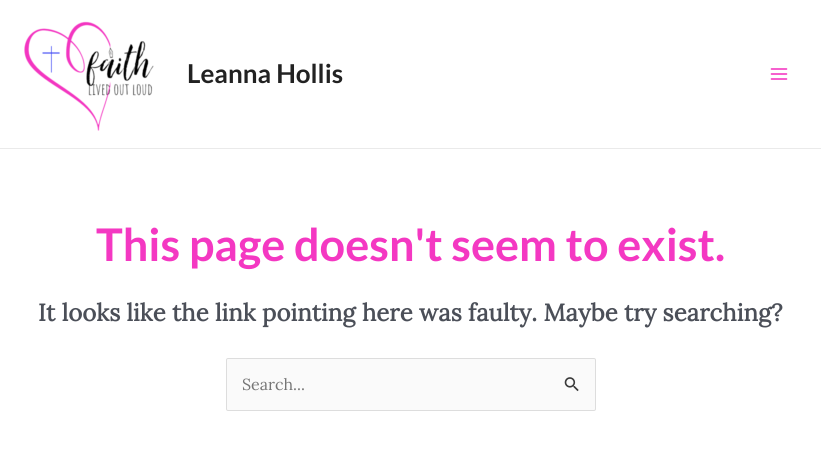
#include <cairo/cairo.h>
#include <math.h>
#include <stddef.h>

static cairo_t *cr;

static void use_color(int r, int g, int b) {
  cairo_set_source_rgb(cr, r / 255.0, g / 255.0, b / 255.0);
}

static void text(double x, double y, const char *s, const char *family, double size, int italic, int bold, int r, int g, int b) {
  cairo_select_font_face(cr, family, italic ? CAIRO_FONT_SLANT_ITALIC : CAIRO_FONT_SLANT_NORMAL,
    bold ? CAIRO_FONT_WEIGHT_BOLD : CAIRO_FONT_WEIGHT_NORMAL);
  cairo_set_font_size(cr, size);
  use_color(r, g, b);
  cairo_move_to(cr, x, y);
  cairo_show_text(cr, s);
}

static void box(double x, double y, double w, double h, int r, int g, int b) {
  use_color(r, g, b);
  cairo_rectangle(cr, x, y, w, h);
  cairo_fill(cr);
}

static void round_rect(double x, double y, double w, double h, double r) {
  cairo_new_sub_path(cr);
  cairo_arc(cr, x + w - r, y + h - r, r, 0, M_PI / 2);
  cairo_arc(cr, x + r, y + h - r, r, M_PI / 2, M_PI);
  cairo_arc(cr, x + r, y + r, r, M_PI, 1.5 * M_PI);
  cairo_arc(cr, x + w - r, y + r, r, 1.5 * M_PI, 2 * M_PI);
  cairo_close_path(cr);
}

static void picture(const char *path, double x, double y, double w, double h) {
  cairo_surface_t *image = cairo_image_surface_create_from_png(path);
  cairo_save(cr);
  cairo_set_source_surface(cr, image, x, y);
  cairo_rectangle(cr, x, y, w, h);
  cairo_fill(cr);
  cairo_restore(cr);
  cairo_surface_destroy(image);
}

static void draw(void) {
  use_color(255, 255, 255);
  cairo_paint(cr);
  box(0, 148, 821, 1, 234, 234, 234);
  picture("img_01.png", 24, 21, 130, 110);
  picture("img_02.png", 770, 68, 18, 12);
  use_color(250, 250, 250);
  round_rect(226.5, 358.5, 369, 52, 1.5);
  cairo_fill_preserve(cr);
  use_color(221, 221, 221);
  cairo_set_line_width(cr, 1);
  cairo_stroke(cr);
  picture("img_03.png", 564, 377, 15, 15);
  text(187, 83, "Leanna Hollis", "Lato", 26, 0, 1, 34, 34, 34);
  text(96, 261, "This page doesn't seem to exist.", "Lato", 45, 0, 1, 244, 56, 194);
  text(38, 321, "It looks like the link pointing here was faulty. Maybe try searching?", "Lora", 24, 0, 1, 75, 79, 88);
  text(242, 390, "Search...", "Lora", 16, 0, 0, 117, 117, 117);
}

int main(void) {
  cairo_surface_t *surface = cairo_image_surface_create(CAIRO_FORMAT_RGB24, 821, 467);
  cr = cairo_create(surface);
  cairo_font_options_t *options = cairo_font_options_create();
  cairo_font_options_set_hint_metrics(options, CAIRO_HINT_METRICS_OFF);
  cairo_font_options_set_hint_style(options, CAIRO_HINT_STYLE_NONE);
  cairo_set_font_options(cr, options);
  cairo_set_miter_limit(cr, 4);
  draw();
  cairo_surface_write_to_png(surface, "out.png");
  cairo_font_options_destroy(options);
  cairo_destroy(cr);
  cairo_surface_destroy(surface);
  return 0;
}
